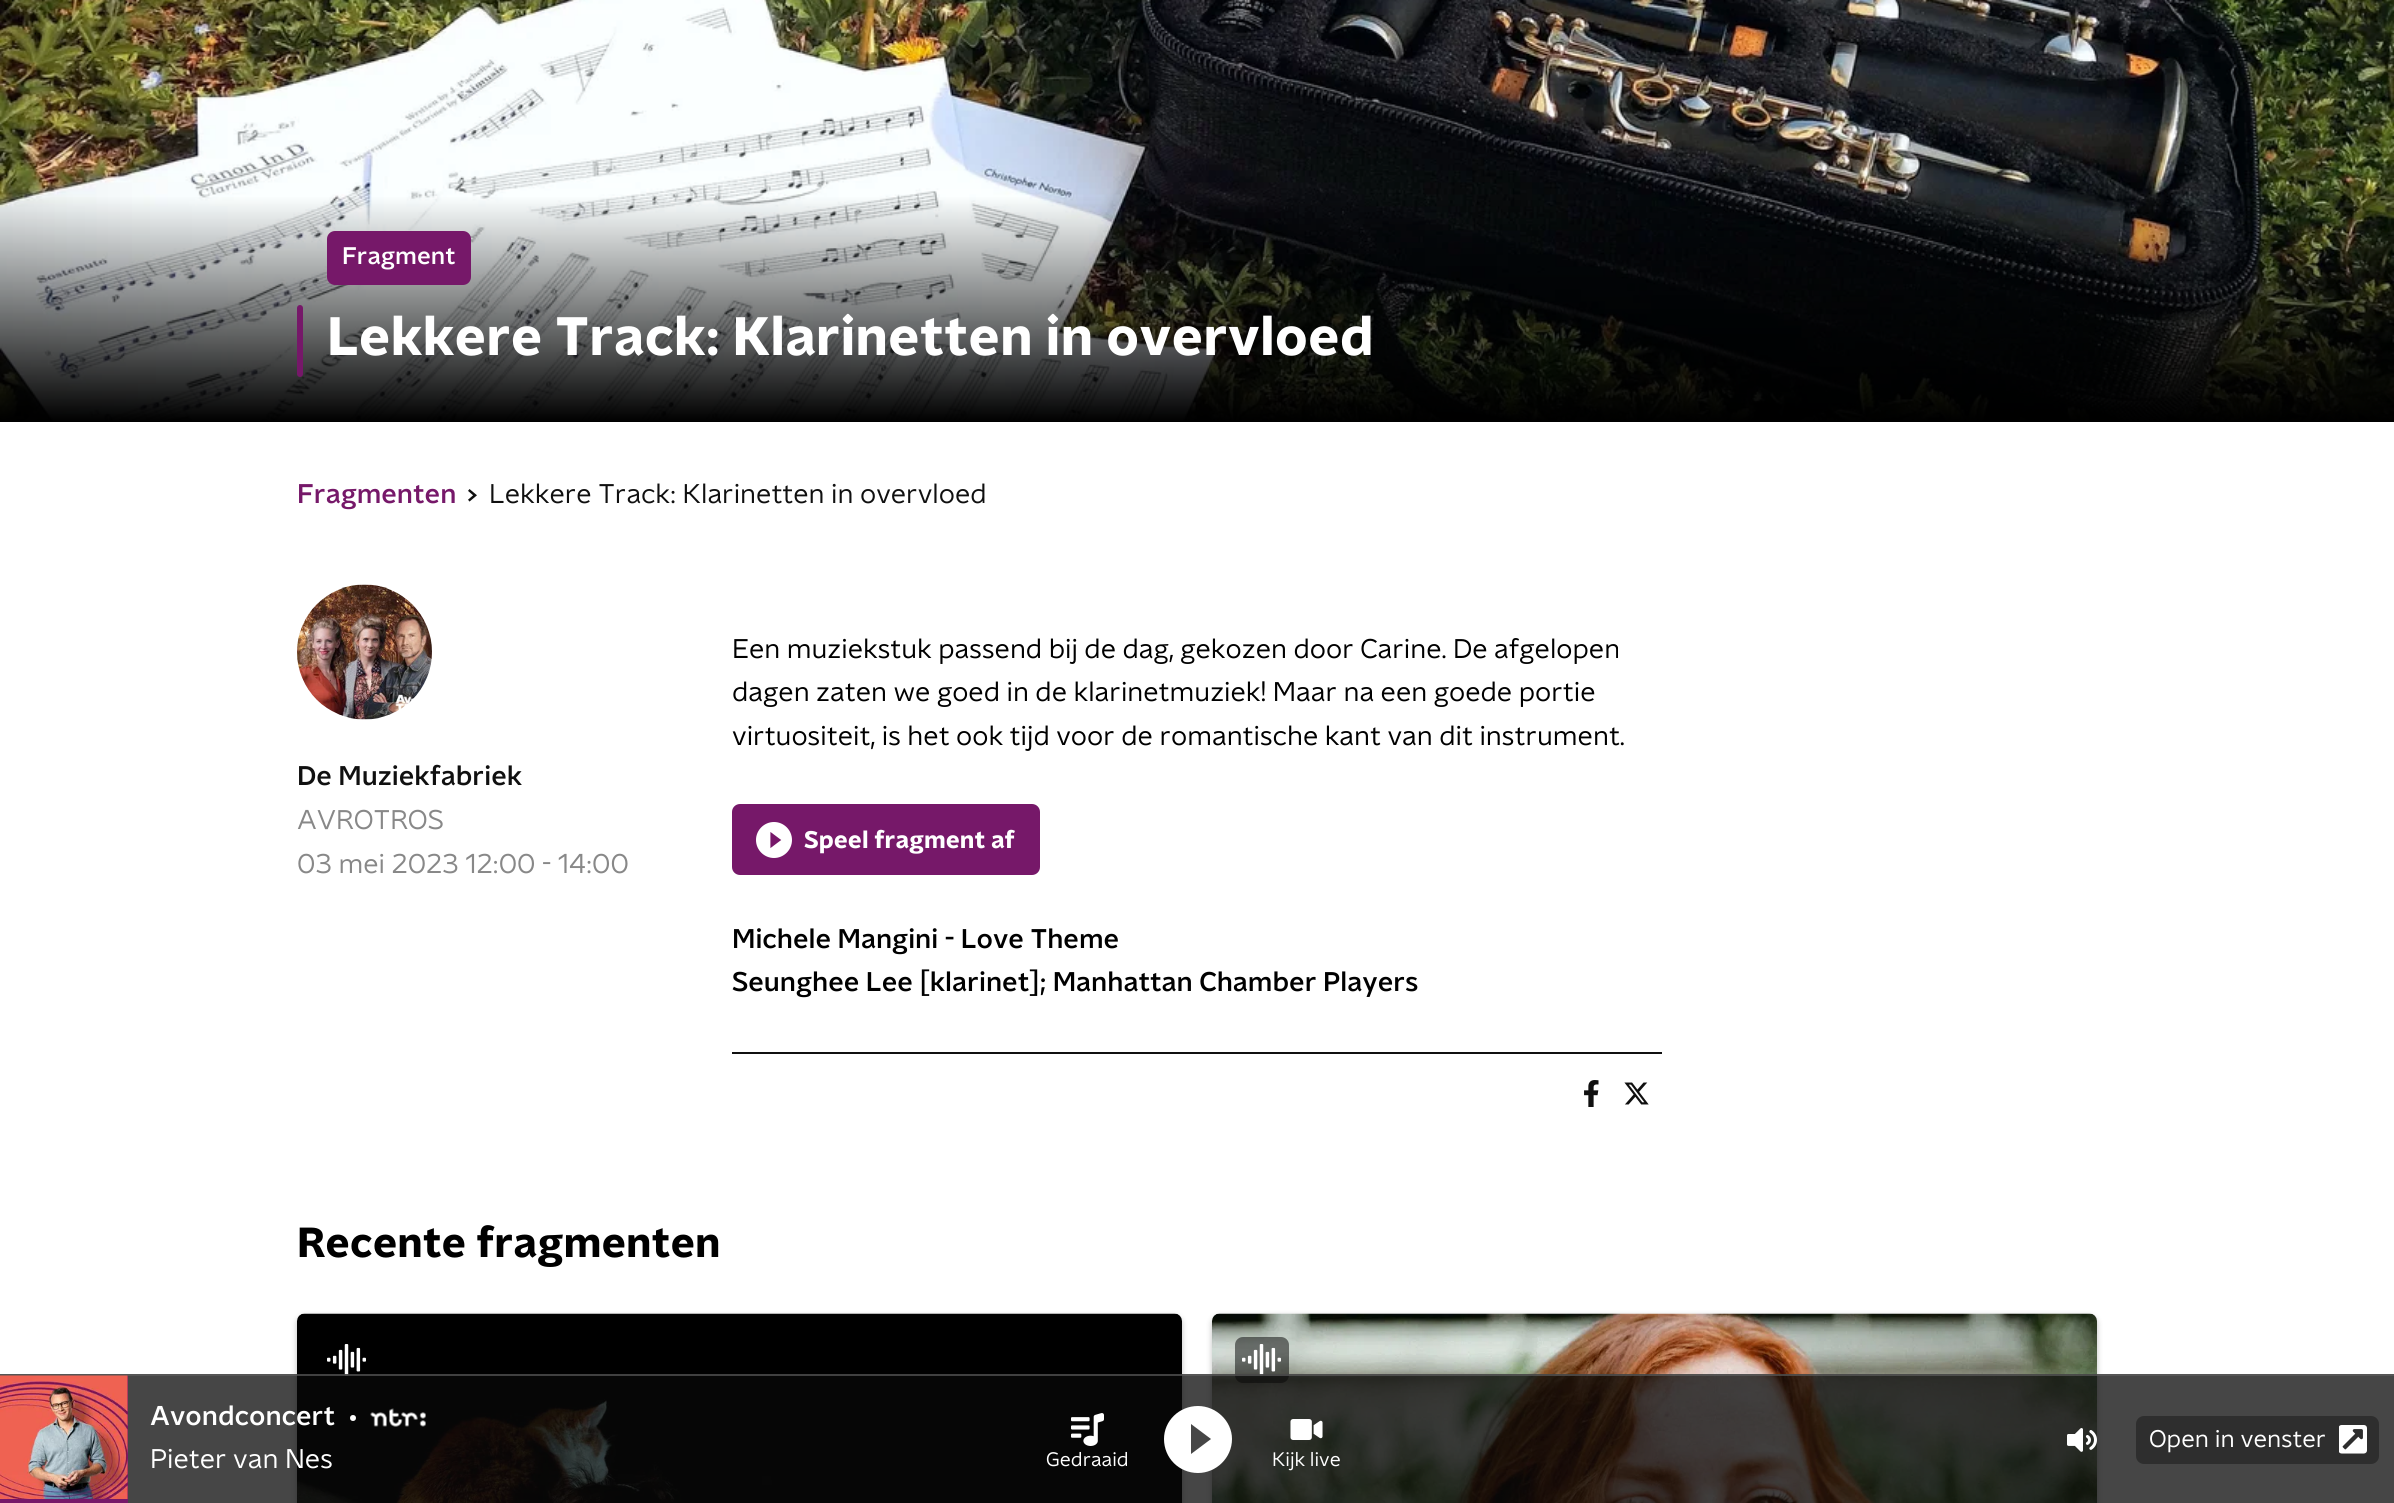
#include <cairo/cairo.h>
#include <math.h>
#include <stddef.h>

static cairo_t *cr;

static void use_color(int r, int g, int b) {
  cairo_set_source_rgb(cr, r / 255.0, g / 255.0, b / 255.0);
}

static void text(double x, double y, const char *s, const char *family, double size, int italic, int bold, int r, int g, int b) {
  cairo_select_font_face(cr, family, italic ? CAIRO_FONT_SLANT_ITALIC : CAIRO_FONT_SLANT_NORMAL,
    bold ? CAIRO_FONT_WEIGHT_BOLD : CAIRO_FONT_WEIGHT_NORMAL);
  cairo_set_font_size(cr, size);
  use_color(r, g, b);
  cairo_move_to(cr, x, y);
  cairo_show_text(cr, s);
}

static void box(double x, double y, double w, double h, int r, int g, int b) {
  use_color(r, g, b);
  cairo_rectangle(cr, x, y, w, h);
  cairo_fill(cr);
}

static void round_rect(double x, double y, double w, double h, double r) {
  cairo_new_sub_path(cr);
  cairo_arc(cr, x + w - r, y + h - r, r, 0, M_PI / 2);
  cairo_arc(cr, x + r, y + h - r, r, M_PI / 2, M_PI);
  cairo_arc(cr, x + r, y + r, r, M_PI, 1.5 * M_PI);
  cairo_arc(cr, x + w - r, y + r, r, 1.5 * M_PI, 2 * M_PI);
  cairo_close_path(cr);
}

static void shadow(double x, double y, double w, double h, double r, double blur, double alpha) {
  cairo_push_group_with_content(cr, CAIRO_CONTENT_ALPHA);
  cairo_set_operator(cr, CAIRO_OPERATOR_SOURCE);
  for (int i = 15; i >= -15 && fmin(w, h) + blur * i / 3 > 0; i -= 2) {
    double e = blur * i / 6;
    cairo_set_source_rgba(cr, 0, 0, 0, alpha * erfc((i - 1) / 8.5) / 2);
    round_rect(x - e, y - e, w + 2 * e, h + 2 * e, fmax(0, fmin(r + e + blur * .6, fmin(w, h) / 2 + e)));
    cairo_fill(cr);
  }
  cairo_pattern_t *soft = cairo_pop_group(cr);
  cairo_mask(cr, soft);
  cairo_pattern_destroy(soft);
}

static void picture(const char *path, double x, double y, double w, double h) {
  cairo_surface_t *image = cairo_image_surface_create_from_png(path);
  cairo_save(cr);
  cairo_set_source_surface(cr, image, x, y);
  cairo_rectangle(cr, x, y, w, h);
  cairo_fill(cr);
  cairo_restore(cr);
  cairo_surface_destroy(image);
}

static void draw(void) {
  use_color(255, 255, 255);
  cairo_paint(cr);
  box(0, 421, 2394, 1, 0, 0, 0);
  picture("img_01.png", 0, 0, 2394, 421);
  use_color(118, 24, 105);
  round_rect(327, 231, 144, 54, 8);
  cairo_fill(cr);
  round_rect(297, 305, 6, 72, 3);
  cairo_fill(cr);
  picture("img_02.png", 468, 489, 9, 13);
  picture("img_03.png", 297, 584, 135, 136);
  round_rect(732, 804, 308, 71, 8);
  cairo_fill(cr);
  picture("img_04.png", 756, 822, 36, 36);
  box(732, 1052, 930, 2, 16, 16, 16);
  picture("img_05.png", 1584, 1080, 15, 27);
  picture("img_06.png", 1624, 1082, 25, 23);
  use_color(0, 0, 0);
  shadow(297, 1316, 885, 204, 8, 3, 0.25);
  picture("img_07.png", 297, 1313, 885, 190);
  picture("img_08.png", 327, 1344, 39, 32);
  shadow(1212, 1316, 885, 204, 8, 3, 0.25);
  picture("img_09.png", 1212, 1313, 885, 190);
  cairo_set_source_rgba(cr, 0, 0, 0, 0.5);
  round_rect(1235, 1337, 54, 46, 8);
  cairo_fill(cr);
  picture("img_10.png", 1242, 1344, 39, 32);
  cairo_set_source_rgba(cr, 0.035, 0.035, 0.035, 0.75);
  cairo_rectangle(cr, 0, 1374, 2394, 129);
  cairo_fill(cr);
  cairo_set_source_rgba(cr, 0.373, 0.373, 0.373, 0.65);
  cairo_rectangle(cr, 0, 1374, 2394, 2);
  cairo_fill(cr);
  box(127, 1376, 1, 123, 118, 24, 105);
  picture("img_11.png", 0, 1375, 128, 124);
  box(0, 1499, 128, 4, 118, 24, 105);
  use_color(255, 255, 255);
  cairo_arc(cr, 353, 1418, 3, 0, 2 * M_PI);
  cairo_fill(cr);
  picture("img_12.png", 370, 1408, 56, 19);
  picture("img_13.png", 2067, 1428, 30, 24);
  use_color(46, 46, 46);
  round_rect(2136, 1416, 243, 48, 8);
  cairo_fill(cr);
  picture("img_14.png", 2339, 1425, 28, 29);
  picture("img_15.png", 1071, 1413, 33, 33);
  use_color(255, 255, 255);
  cairo_new_path(cr);
  cairo_move_to(cr, 1198, 1406);
  cairo_curve_to(cr, 1179, 1406, 1164, 1421, 1164, 1439);
  cairo_curve_to(cr, 1164, 1458, 1179, 1473, 1198, 1473);
  cairo_curve_to(cr, 1216, 1473, 1232, 1458, 1232, 1439);
  cairo_curve_to(cr, 1232, 1421, 1216, 1406, 1198, 1406);
  cairo_close_path(cr);
  cairo_move_to(cr, 1191, 1454);
  cairo_line_to(cr, 1191, 1424);
  cairo_line_to(cr, 1211, 1439);
  cairo_close_path(cr);
  cairo_fill(cr);
  picture("img_16.png", 1290, 1419, 33, 21);
  text(342, 264, "Fragment", "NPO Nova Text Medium", 24, 0, 0, 255, 255, 255);
  text(327, 355, "Lekkere Track: Klarinetten in overvloed", "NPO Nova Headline", 54, 0, 1, 255, 255, 255);
  text(297, 503, "Fragmenten", "NPO Nova Text Medium", 27, 0, 0, 118, 24, 105);
  text(489, 503, "Lekkere Track: Klarinetten in overvloed", "NPO Nova Text", 27, 0, 0, 16, 16, 16);
  text(297, 785, "De Muziekfabriek", "NPO Nova Text Medium", 27, 0, 0, 16, 16, 16);
  text(297, 829, "AVROTROS", "NPO Nova Text", 27, 0, 0, 136, 136, 136);
  text(297, 873, "03 mei 2023 12:00 - 14:00", "NPO Nova Text", 27, 0, 0, 136, 136, 136);
  text(732, 658, "Een muziekstuk passend bij de dag, gekozen door Carine. De afgelopen", "NPO Nova Text", 27, 0, 0, 0, 0, 0);
  text(732, 701, "dagen zaten we goed in de klarinetmuziek! Maar na een goede portie", "NPO Nova Text", 27, 0, 0, 0, 0, 0);
  text(732, 745, "virtuositeit, is het ook tijd voor de romantische kant van dit instrument.", "NPO Nova Text", 27, 0, 0, 0, 0, 0);
  text(804, 848, "Speel fragment af", "NPO Nova Headline", 24, 0, 1, 255, 255, 255);
  text(732, 948, "Michele Mangini - Love Theme", "NPO Nova Text Medium", 27, 0, 0, 0, 0, 0);
  text(732, 991, "Seunghee Lee [klarinet]; Manhattan Chamber Players", "NPO Nova Text Medium", 27, 0, 0, 0, 0, 0);
  text(297, 1257, "Recente fragmenten", "NPO Nova Headline", 42, 0, 1, 0, 0, 0);
  text(150, 1425, "Avondconcert", "NPO Nova Text Medium", 27, 0, 0, 255, 255, 255);
  text(150, 1468, "Pieter van Nes", "NPO Nova Text", 27, 0, 0, 255, 255, 255);
  text(2149, 1447, "Open in venster", "NPO Nova Text", 24, 0, 0, 255, 255, 255);
  text(1046, 1466, "Gedraaid", "NPO Nova Text", 19.5, 0, 0, 255, 255, 255);
  text(1272, 1466, "Kijk live", "NPO Nova Text", 19.5, 0, 0, 255, 255, 255);
}

int main(void) {
  cairo_surface_t *surface = cairo_image_surface_create(CAIRO_FORMAT_RGB24, 2394, 1503);
  cr = cairo_create(surface);
  cairo_font_options_t *options = cairo_font_options_create();
  cairo_font_options_set_hint_metrics(options, CAIRO_HINT_METRICS_OFF);
  cairo_font_options_set_hint_style(options, CAIRO_HINT_STYLE_NONE);
  cairo_set_font_options(cr, options);
  cairo_set_miter_limit(cr, 4);
  draw();
  cairo_surface_write_to_png(surface, "out.png");
  cairo_font_options_destroy(options);
  cairo_destroy(cr);
  cairo_surface_destroy(surface);
  return 0;
}
